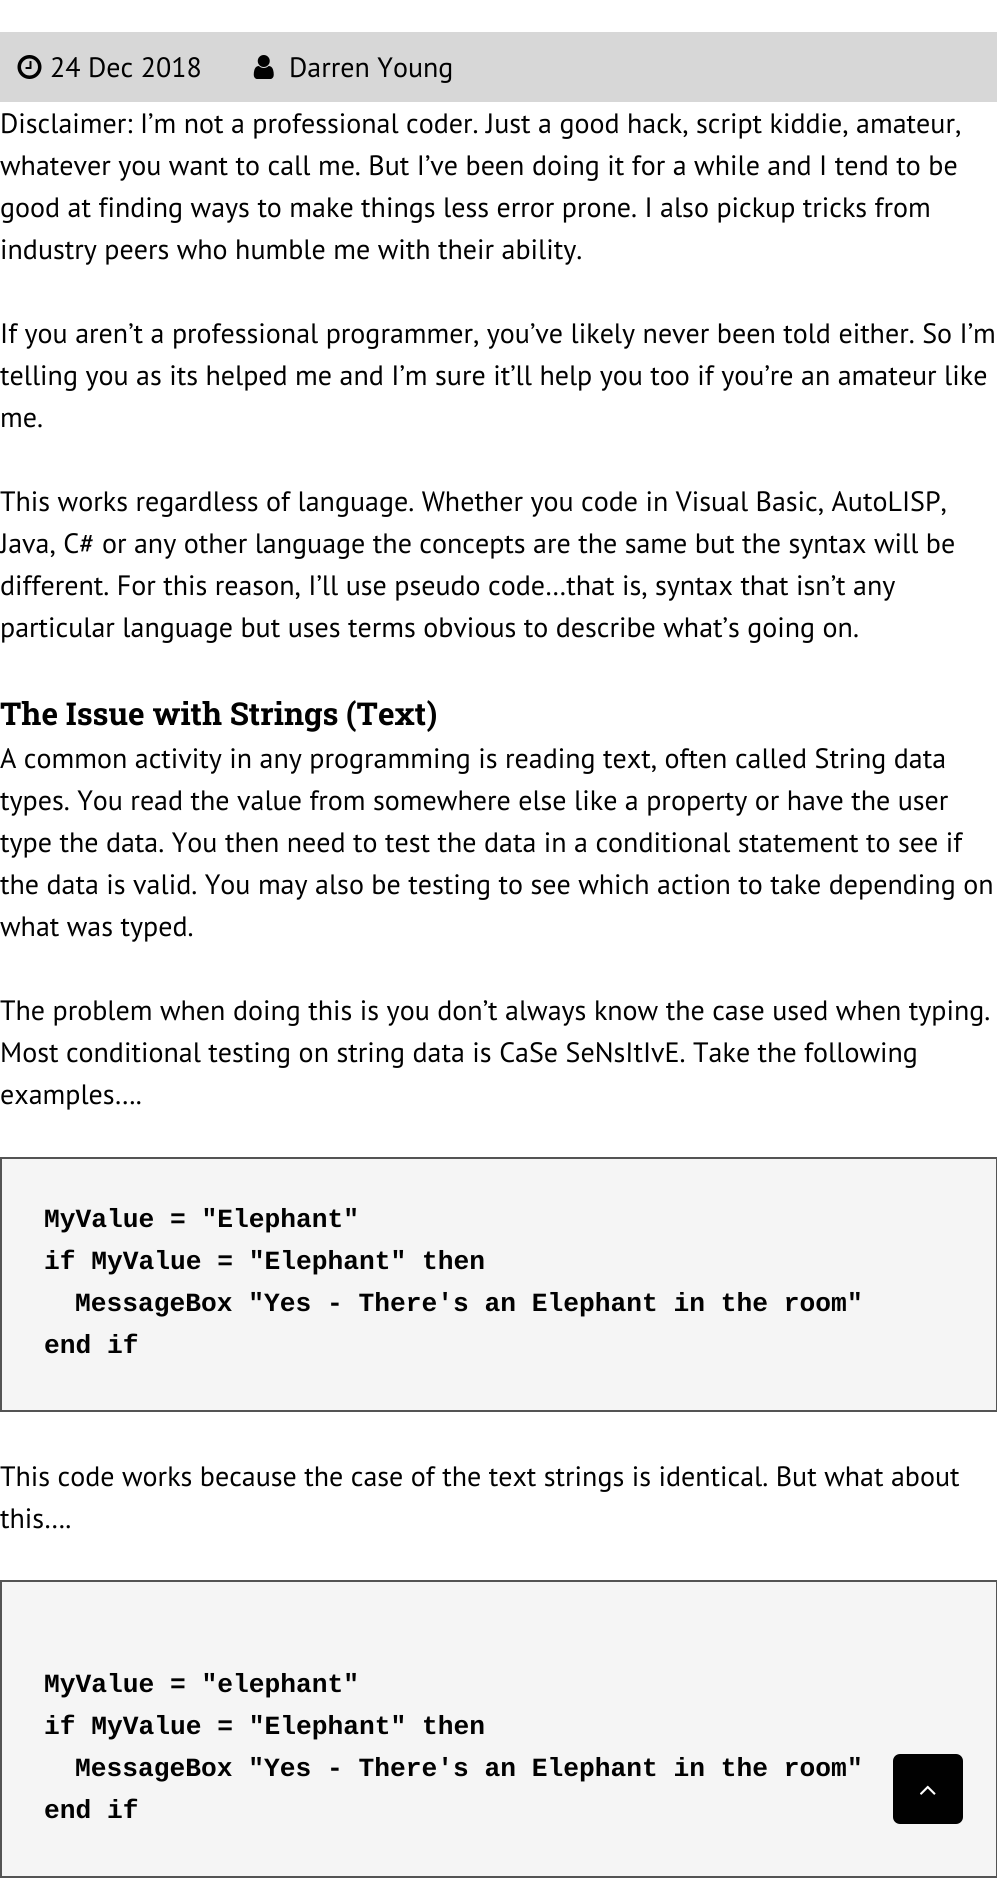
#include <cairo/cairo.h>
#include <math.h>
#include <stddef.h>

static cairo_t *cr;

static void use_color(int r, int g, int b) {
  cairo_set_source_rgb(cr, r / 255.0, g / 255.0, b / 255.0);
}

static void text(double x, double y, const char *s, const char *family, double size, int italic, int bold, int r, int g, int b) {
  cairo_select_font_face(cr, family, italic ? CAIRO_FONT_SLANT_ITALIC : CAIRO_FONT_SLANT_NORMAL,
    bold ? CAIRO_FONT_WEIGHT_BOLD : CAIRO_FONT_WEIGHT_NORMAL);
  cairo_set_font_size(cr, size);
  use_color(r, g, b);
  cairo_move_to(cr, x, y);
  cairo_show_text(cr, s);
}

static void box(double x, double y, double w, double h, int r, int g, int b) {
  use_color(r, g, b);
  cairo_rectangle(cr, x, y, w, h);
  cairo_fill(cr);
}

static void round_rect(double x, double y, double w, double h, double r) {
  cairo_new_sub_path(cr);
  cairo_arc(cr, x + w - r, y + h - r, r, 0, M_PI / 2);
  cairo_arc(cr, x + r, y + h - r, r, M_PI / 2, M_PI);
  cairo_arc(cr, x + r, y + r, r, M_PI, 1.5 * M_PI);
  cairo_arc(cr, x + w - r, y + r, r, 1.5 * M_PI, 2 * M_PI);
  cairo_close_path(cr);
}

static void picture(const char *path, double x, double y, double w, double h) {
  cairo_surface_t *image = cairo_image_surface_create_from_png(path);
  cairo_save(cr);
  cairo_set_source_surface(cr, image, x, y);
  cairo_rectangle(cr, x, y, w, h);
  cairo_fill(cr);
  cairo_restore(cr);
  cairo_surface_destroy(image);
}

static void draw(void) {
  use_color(255, 255, 255);
  cairo_paint(cr);
  box(0, 32, 997, 70, 215, 215, 215);
  picture("img_01.png", 17, 55, 25, 24);
  picture("img_02.png", 253, 55, 21, 24);
  use_color(245, 245, 245);
  cairo_rectangle(cr, 1, 1158, 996, 253);
  cairo_fill_preserve(cr);
  use_color(84, 84, 84);
  cairo_stroke(cr);
  use_color(245, 245, 245);
  cairo_rectangle(cr, 1, 1581, 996, 296);
  cairo_fill_preserve(cr);
  use_color(84, 84, 84);
  cairo_stroke(cr);
  use_color(1, 1, 1);
  round_rect(893, 1754, 70, 70, 7);
  cairo_fill(cr);
  picture("img_03.png", 920, 1785, 16, 10);
  text(50, 77, "24 Dec 2018", "PT Sans", 28, 0, 0, 1, 1, 1);
  text(289, 77, "Darren Young", "PT Sans", 28, 0, 0, 1, 1, 1);
  text(0, 133, "Disclaimer: I’m not a professional coder. Just a good hack, script kiddie, amateur,", "PT Sans", 28, 0, 0, 1, 1, 1);
  text(0, 175, "whatever you want to call me. But I’ve been doing it for a while and I tend to be", "PT Sans", 28, 0, 0, 1, 1, 1);
  text(0, 217, "good at finding ways to make things less error prone. I also pickup tricks from", "PT Sans", 28, 0, 0, 1, 1, 1);
  text(0, 259, "industry peers who humble me with their ability.", "PT Sans", 28, 0, 0, 1, 1, 1);
  text(0, 343, "If you aren’t a professional programmer, you’ve likely never been told either. So I’m", "PT Sans", 28, 0, 0, 1, 1, 1);
  text(0, 385, "telling you as its helped me and I’m sure it’ll help you too if you’re an amateur like", "PT Sans", 28, 0, 0, 1, 1, 1);
  text(0, 427, "me.", "PT Sans", 28, 0, 0, 1, 1, 1);
  text(0, 511, "This works regardless of language. Whether you code in Visual Basic, AutoLISP,", "PT Sans", 28, 0, 0, 1, 1, 1);
  text(0, 553, "Java, C# or any other language the concepts are the same but the syntax will be", "PT Sans", 28, 0, 0, 1, 1, 1);
  text(0, 595, "different. For this reason, I’ll use pseudo code…that is, syntax that isn’t any", "PT Sans", 28, 0, 0, 1, 1, 1);
  text(0, 637, "particular language but uses terms obvious to describe what’s going on.", "PT Sans", 28, 0, 0, 1, 1, 1);
  text(0, 725, "The Issue with Strings (Text)", "Roboto Slab", 31.5, 0, 1, 1, 1, 1);
  text(0, 768, "A common activity in any programming is reading text, often called String data", "PT Sans", 28, 0, 0, 1, 1, 1);
  text(0, 810, "types. You read the value from somewhere else like a property or have the user", "PT Sans", 28, 0, 0, 1, 1, 1);
  text(0, 852, "type the data. You then need to test the data in a conditional statement to see if", "PT Sans", 28, 0, 0, 1, 1, 1);
  text(0, 894, "the data is valid. You may also be testing to see which action to take depending on", "PT Sans", 28, 0, 0, 1, 1, 1);
  text(0, 936, "what was typed.", "PT Sans", 28, 0, 0, 1, 1, 1);
  text(0, 1020, "The problem when doing this is you don’t always know the case used when typing.", "PT Sans", 28, 0, 0, 1, 1, 1);
  text(0, 1062, "Most conditional testing on string data is CaSe SeNsItIvE. Take the following", "PT Sans", 28, 0, 0, 1, 1, 1);
  text(0, 1104, "examples….", "PT Sans", 28, 0, 0, 1, 1, 1);
  text(44, 1227, "MyValue = \"Elephant\"", "Liberation Mono", 26.25, 0, 1, 1, 1, 1);
  text(44, 1269, "if MyValue = \"Elephant\" then", "Liberation Mono", 26.25, 0, 1, 1, 1, 1);
  text(75, 1311, "MessageBox \"Yes - There's an Elephant in the room\"", "Liberation Mono", 26.25, 0, 1, 1, 1, 1);
  text(44, 1353, "end if", "Liberation Mono", 26.25, 0, 1, 1, 1, 1);
  text(0, 1486, "This code works because the case of the text strings is identical. But what about", "PT Sans", 28, 0, 0, 1, 1, 1);
  text(0, 1528, "this….", "PT Sans", 28, 0, 0, 1, 1, 1);
  text(44, 1692, "MyValue = \"elephant\"", "Liberation Mono", 26.25, 0, 1, 1, 1, 1);
  text(44, 1734, "if MyValue = \"Elephant\" then", "Liberation Mono", 26.25, 0, 1, 1, 1, 1);
  text(75, 1776, "MessageBox \"Yes - There's an Elephant in the room\"", "Liberation Mono", 26.25, 0, 1, 1, 1, 1);
  text(44, 1818, "end if", "Liberation Mono", 26.25, 0, 1, 1, 1, 1);
}

int main(void) {
  cairo_surface_t *surface = cairo_image_surface_create(CAIRO_FORMAT_RGB24, 997, 1878);
  cr = cairo_create(surface);
  cairo_font_options_t *options = cairo_font_options_create();
  cairo_font_options_set_hint_metrics(options, CAIRO_HINT_METRICS_OFF);
  cairo_font_options_set_hint_style(options, CAIRO_HINT_STYLE_NONE);
  cairo_set_font_options(cr, options);
  cairo_set_miter_limit(cr, 4);
  draw();
  cairo_surface_write_to_png(surface, "out.png");
  cairo_font_options_destroy(options);
  cairo_destroy(cr);
  cairo_surface_destroy(surface);
  return 0;
}
